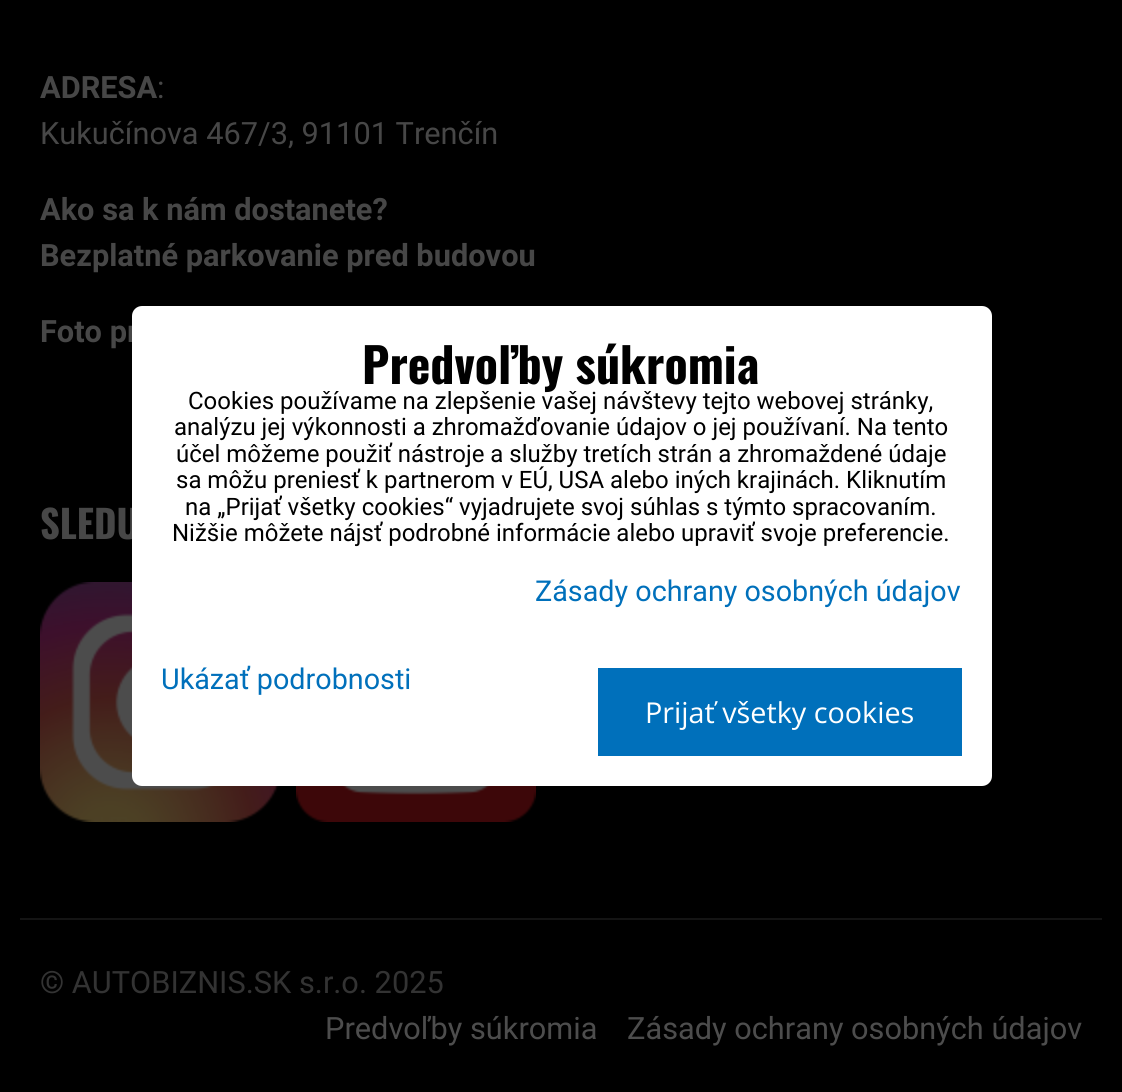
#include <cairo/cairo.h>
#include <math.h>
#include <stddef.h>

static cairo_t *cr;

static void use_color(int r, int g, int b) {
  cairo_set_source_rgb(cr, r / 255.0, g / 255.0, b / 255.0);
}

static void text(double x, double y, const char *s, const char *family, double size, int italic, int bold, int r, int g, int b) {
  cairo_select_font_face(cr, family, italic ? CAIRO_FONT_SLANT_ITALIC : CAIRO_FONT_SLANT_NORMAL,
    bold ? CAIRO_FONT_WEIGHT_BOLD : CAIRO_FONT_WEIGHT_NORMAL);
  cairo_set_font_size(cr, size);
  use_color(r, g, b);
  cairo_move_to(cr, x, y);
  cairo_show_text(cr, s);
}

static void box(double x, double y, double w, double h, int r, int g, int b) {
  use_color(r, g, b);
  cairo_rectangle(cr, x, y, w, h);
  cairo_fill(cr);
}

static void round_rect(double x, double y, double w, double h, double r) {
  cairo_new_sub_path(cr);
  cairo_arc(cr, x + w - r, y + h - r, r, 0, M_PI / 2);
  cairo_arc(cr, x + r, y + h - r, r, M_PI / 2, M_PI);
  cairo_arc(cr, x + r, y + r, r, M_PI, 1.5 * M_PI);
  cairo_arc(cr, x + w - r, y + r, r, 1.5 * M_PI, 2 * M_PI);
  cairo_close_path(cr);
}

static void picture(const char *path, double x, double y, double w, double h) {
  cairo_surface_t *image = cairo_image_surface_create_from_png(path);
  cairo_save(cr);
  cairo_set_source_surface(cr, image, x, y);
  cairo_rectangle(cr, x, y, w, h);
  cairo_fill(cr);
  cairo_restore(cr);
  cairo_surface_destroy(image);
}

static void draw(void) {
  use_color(0, 0, 0);
  cairo_paint(cr);
  picture("img_01.png", 40, 582, 239, 240);
  picture("img_02.png", 296, 786, 240, 36);
  box(20, 918, 1082, 2, 20, 20, 20);
  text(40, 98, "ADRESA", "Roboto", 30.75, 0, 1, 71, 71, 71);
  text(157, 98, ":", "Roboto", 30.75, 0, 0, 71, 71, 71);
  text(40, 144, "Kukučínova 467/3, 91101 Trenčín", "Roboto", 30.75, 0, 0, 71, 71, 71);
  text(40, 220, "Ako sa k nám dostanete?", "Roboto", 30.75, 0, 1, 71, 71, 71);
  text(40, 266, "Bezplatné parkovanie pred budovou", "Roboto", 30.75, 0, 1, 71, 71, 71);
  text(40, 342, "Foto pr", "Roboto", 30.75, 0, 1, 71, 71, 71);
  text(40, 539, "SLEDU", "Oswald", 38.5, 0, 1, 71, 71, 71);
  text(40, 993, "© AUTOBIZNIS.SK s.r.o. 2025", "Roboto", 30.75, 0, 0, 51, 51, 51);
  text(325, 1039, "Predvoľby súkromia", "Roboto", 30.75, 0, 0, 77, 77, 77);
  text(627, 1039, "Zásady ochrany osobných údajov", "Roboto", 30.75, 0, 0, 77, 77, 77);
  use_color(255, 255, 255);
  round_rect(132, 306, 860, 480, 10);
  cairo_fill(cr);
  text(362, 384, "Predvoľby súkromia", "Oswald", 48, 0, 1, 0, 0, 0);
  text(188, 409, "Cookies používame na zlepšenie vašej návštevy tejto webovej stránky,", "Roboto", 24, 0, 0, 0, 0, 0);
  text(174, 435, "analýzu jej výkonnosti a zhromažďovanie údajov o jej používaní. Na tento", "Roboto", 24, 0, 0, 0, 0, 0);
  text(176, 462, "účel môžeme použiť nástroje a služby tretích strán a zhromaždené údaje", "Roboto", 24, 0, 0, 0, 0, 0);
  text(176, 488, "sa môžu preniesť k partnerom v EÚ, USA alebo iných krajinách. Kliknutím", "Roboto", 24, 0, 0, 0, 0, 0);
  text(185, 515, "na „Prijať všetky cookies“ vyjadrujete svoj súhlas s týmto spracovaním.", "Roboto", 24, 0, 0, 0, 0, 0);
  text(172, 541, "Nižšie môžete nájsť podrobné informácie alebo upraviť svoje preferencie.", "Roboto", 24, 0, 0, 0, 0, 0);
  text(535, 601, "Zásady ochrany osobných údajov", "Roboto", 28.75, 0, 0, 0, 112, 187);
  text(161, 689, "Ukázať podrobnosti", "Roboto", 28.75, 0, 0, 0, 112, 187);
  box(598, 668, 364, 88, 0, 112, 187);
  text(645, 723, "Prijať všetky cookies", "Open Sans", 28.75, 0, 0, 255, 255, 255);
}

int main(void) {
  cairo_surface_t *surface = cairo_image_surface_create(CAIRO_FORMAT_RGB24, 1122, 1092);
  cr = cairo_create(surface);
  cairo_font_options_t *options = cairo_font_options_create();
  cairo_font_options_set_hint_metrics(options, CAIRO_HINT_METRICS_OFF);
  cairo_font_options_set_hint_style(options, CAIRO_HINT_STYLE_NONE);
  cairo_set_font_options(cr, options);
  cairo_set_miter_limit(cr, 4);
  draw();
  cairo_surface_write_to_png(surface, "out.png");
  cairo_font_options_destroy(options);
  cairo_destroy(cr);
  cairo_surface_destroy(surface);
  return 0;
}
